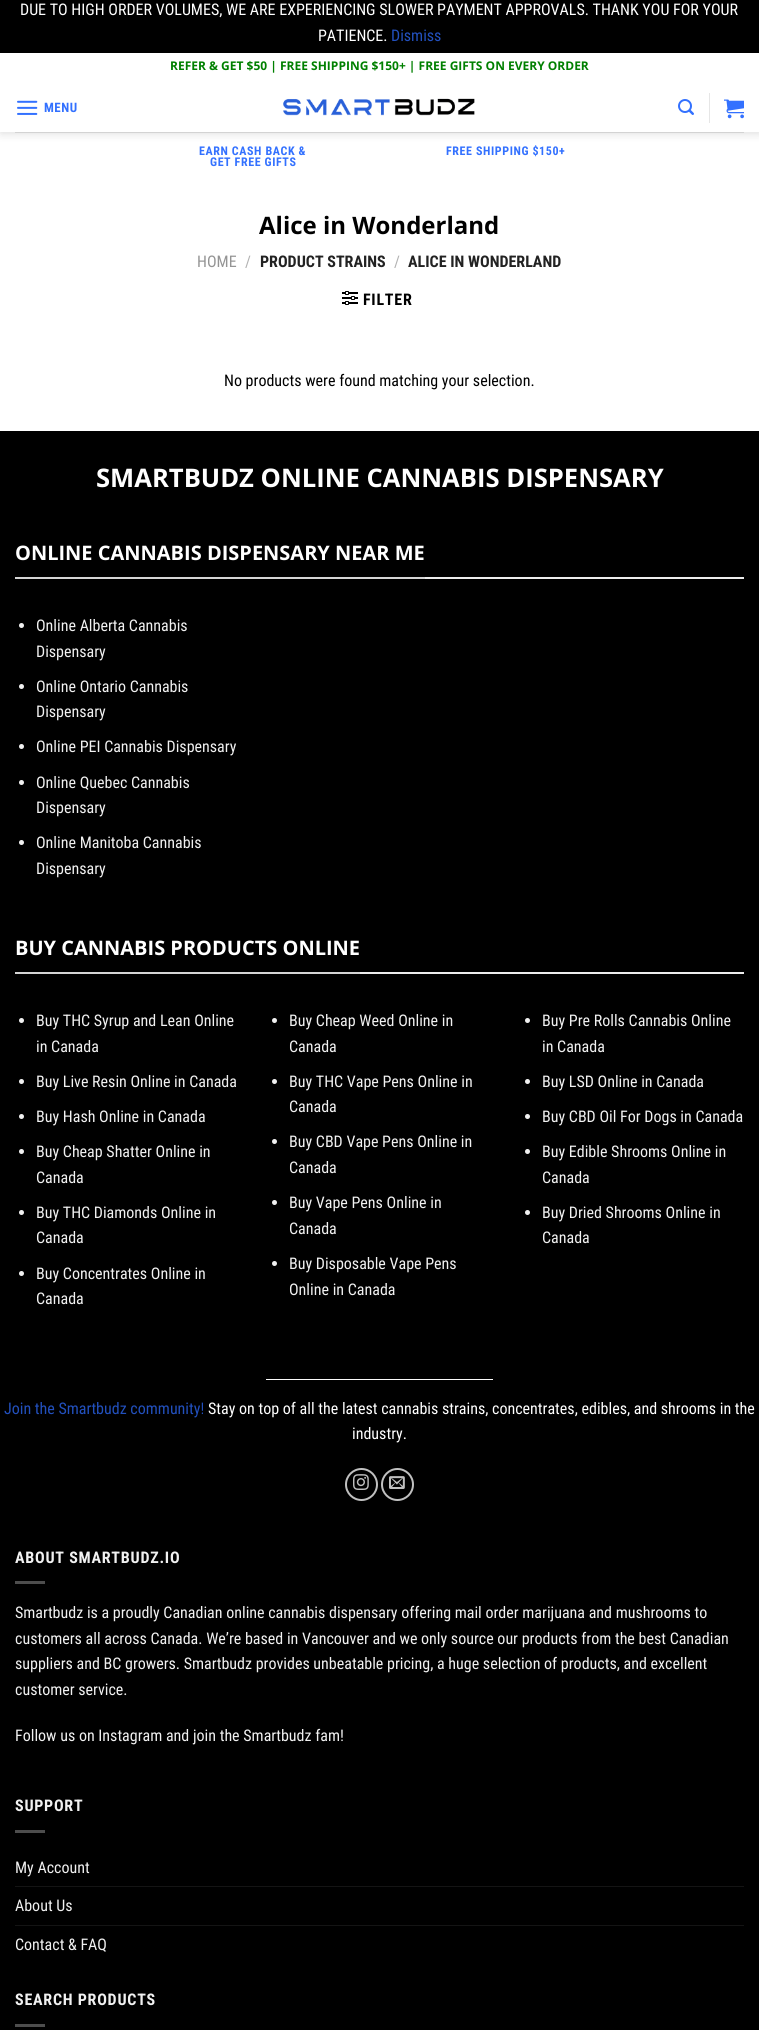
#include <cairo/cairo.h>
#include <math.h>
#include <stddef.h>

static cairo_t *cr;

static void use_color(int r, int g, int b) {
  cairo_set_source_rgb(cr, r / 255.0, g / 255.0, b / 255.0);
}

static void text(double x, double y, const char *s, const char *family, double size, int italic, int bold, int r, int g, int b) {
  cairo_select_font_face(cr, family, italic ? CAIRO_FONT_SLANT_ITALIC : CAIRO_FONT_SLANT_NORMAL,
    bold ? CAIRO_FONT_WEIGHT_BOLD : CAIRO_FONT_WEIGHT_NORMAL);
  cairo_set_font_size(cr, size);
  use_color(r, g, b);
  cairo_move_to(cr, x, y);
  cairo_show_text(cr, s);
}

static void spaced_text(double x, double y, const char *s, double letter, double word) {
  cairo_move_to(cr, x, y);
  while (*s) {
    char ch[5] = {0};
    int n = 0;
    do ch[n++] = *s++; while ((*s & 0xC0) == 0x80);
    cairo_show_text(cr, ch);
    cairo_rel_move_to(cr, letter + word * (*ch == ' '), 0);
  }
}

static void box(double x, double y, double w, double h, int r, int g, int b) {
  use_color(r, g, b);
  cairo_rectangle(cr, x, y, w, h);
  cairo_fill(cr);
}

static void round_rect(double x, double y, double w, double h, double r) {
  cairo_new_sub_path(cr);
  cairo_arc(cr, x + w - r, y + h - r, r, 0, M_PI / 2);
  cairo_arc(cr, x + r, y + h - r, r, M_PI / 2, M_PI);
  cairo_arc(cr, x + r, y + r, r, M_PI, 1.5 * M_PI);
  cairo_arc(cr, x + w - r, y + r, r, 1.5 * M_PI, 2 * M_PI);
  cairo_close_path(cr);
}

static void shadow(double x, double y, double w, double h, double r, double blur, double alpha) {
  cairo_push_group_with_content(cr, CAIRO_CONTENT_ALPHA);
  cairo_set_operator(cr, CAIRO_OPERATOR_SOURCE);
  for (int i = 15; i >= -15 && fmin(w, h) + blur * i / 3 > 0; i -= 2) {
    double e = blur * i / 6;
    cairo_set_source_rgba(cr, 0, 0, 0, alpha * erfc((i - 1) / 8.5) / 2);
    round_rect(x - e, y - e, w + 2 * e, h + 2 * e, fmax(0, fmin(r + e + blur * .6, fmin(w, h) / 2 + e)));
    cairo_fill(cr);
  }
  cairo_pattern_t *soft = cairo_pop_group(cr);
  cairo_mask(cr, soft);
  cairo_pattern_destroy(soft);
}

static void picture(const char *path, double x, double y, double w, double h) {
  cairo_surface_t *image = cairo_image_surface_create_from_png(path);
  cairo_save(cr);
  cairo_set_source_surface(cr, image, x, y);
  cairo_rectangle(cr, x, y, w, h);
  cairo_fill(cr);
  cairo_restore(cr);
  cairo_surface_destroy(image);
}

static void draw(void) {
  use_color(0, 0, 0);
  cairo_paint(cr);
  box(0, 53, 759, 378, 255, 255, 255);
  cairo_save(cr);
  cairo_set_fill_rule(cr, CAIRO_FILL_RULE_EVEN_ODD);
  cairo_new_path(cr);
  cairo_move_to(cr, 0, 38);
  cairo_line_to(cr, 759, 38);
  cairo_line_to(cr, 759, 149);
  cairo_line_to(cr, 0, 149);
  cairo_close_path(cr);
  cairo_move_to(cr, 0, 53);
  cairo_line_to(cr, 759, 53);
  cairo_line_to(cr, 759, 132);
  cairo_line_to(cr, 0, 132);
  cairo_close_path(cr);
  cairo_clip(cr);
  use_color(0, 0, 0);
  shadow(1, 54, 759, 79, 0, 5, 0.15);
  cairo_restore(cr);
  picture("img_01.png", 17, 100, 21, 15);
  picture("img_02.png", 283, 98, 192, 18);
  picture("img_03.png", 678, 99, 16, 16);
  box(709, 93, 1, 30, 230, 230, 230);
  picture("img_04.png", 724, 99, 20, 20);
  box(15, 132, 729, 1, 211, 211, 211);
  picture("img_05.png", 342, 291, 16, 14);
  box(425, 577, 319, 2, 236, 236, 236);
  box(15, 577, 410, 2, 212, 212, 212);
  use_color(241, 241, 241);
  cairo_arc(cr, 21.5, 625.5, 2.5, 0, 2 * M_PI);
  cairo_fill(cr);
  cairo_arc(cr, 21.5, 686.5, 2.5, 0, 2 * M_PI);
  cairo_fill(cr);
  cairo_arc(cr, 21.5, 746.5, 2.5, 0, 2 * M_PI);
  cairo_fill(cr);
  cairo_arc(cr, 21.5, 782.5, 2.5, 0, 2 * M_PI);
  cairo_fill(cr);
  cairo_arc(cr, 21.5, 842.5, 2.5, 0, 2 * M_PI);
  cairo_fill(cr);
  box(360, 972, 384, 2, 236, 236, 236);
  box(15, 972, 345, 2, 212, 212, 212);
  use_color(241, 241, 241);
  cairo_arc(cr, 21.5, 1020.5, 2.5, 0, 2 * M_PI);
  cairo_fill(cr);
  cairo_arc(cr, 21.5, 1081.5, 2.5, 0, 2 * M_PI);
  cairo_fill(cr);
  cairo_arc(cr, 21.5, 1116.5, 2.5, 0, 2 * M_PI);
  cairo_fill(cr);
  cairo_arc(cr, 21.5, 1151.5, 2.5, 0, 2 * M_PI);
  cairo_fill(cr);
  cairo_arc(cr, 21.5, 1212.5, 2.5, 0, 2 * M_PI);
  cairo_fill(cr);
  cairo_arc(cr, 21.5, 1273.5, 2.5, 0, 2 * M_PI);
  cairo_fill(cr);
  cairo_arc(cr, 274.5, 1020.5, 2.5, 0, 2 * M_PI);
  cairo_fill(cr);
  cairo_arc(cr, 274.5, 1081.5, 2.5, 0, 2 * M_PI);
  cairo_fill(cr);
  cairo_arc(cr, 274.5, 1141.5, 2.5, 0, 2 * M_PI);
  cairo_fill(cr);
  cairo_arc(cr, 274.5, 1202.5, 2.5, 0, 2 * M_PI);
  cairo_fill(cr);
  cairo_arc(cr, 274.5, 1263.5, 2.5, 0, 2 * M_PI);
  cairo_fill(cr);
  cairo_arc(cr, 527.5, 1020.5, 2.5, 0, 2 * M_PI);
  cairo_fill(cr);
  cairo_arc(cr, 527.5, 1081.5, 2.5, 0, 2 * M_PI);
  cairo_fill(cr);
  cairo_arc(cr, 527.5, 1116.5, 2.5, 0, 2 * M_PI);
  cairo_fill(cr);
  cairo_arc(cr, 527.5, 1151.5, 2.5, 0, 2 * M_PI);
  cairo_fill(cr);
  cairo_arc(cr, 527.5, 1212.5, 2.5, 0, 2 * M_PI);
  cairo_fill(cr);
  box(266, 1379, 227, 1, 251, 250, 250);
  cairo_arc(cr, 361.5, 1484.5, 15.5, 0, 2 * M_PI);
  use_color(192, 192, 192);
  cairo_stroke(cr);
  picture("img_06.png", 353, 1474, 16, 16);
  cairo_arc(cr, 397.5, 1484.5, 15.5, 0, 2 * M_PI);
  cairo_stroke(cr);
  picture("img_07.png", 389, 1476, 16, 13);
  box(15, 1581, 30, 3, 77, 77, 77);
  box(15, 1830, 30, 3, 77, 77, 77);
  box(15, 1886, 729, 1, 20, 20, 20);
  box(15, 1925, 729, 1, 20, 20, 20);
  box(15, 2024, 30, 3, 77, 77, 77);
  text(20, 15, "DUE TO HIGH ORDER VOLUMES, WE ARE EXPERIENCING SLOWER PAYMENT APPROVALS. THANK YOU FOR YOUR", "Roboto Condensed", 16, 0, 0, 255, 255, 255);
  text(318, 41, "PATIENCE.", "Roboto Condensed", 16, 0, 0, 255, 255, 255);
  text(391, 41, "Dismiss", "Roboto Condensed", 16, 0, 0, 34, 80, 190);
  text(170, 70, "REFER & GET $50 | FREE SHIPPING $150+ | FREE GIFTS ON EVERY ORDER", "Open Sans", 12, 0, 1, 0, 128, 0);
  cairo_select_font_face(cr, "Roboto Condensed", CAIRO_FONT_SLANT_NORMAL, CAIRO_FONT_WEIGHT_BOLD);
  cairo_set_font_size(cr, 13);
  use_color(51, 113, 255);
  spaced_text(44, 112, "MENU", 0.5, 0);
  cairo_set_font_size(cr, 12);
  spaced_text(199, 155, "EARN CASH BACK &", 0.6, 0);
  spaced_text(210, 166, "GET FREE GIFTS", 0.6, 0);
  spaced_text(446, 155, "FREE SHIPPING $150+", 0.6, 0);
  text(259, 234, "Alice in Wonderland", "Open Sans", 24, 0, 1, 0, 0, 0);
  text(197, 267, "HOME", "Roboto Condensed", 16, 0, 0, 148, 148, 148);
  text(245, 267, "/", "Roboto Condensed", 16, 0, 0, 178, 178, 178);
  text(260, 267, "PRODUCT STRAINS", "Roboto Condensed", 16, 0, 1, 34, 34, 34);
  text(394, 267, "/", "Roboto Condensed", 16, 0, 0, 178, 178, 178);
  text(408, 267, "ALICE IN WONDERLAND", "Roboto Condensed", 16, 0, 1, 34, 34, 34);
  use_color(0, 0, 0);
  spaced_text(363, 305, "FILTER", 0.75, 0);
  text(224, 386, "No products were found matching your selection.", "Roboto Condensed", 16, 0, 0, 0, 0, 0);
  text(96, 487, "SMARTBUDZ ONLINE CANNABIS DISPENSARY", "Open Sans", 25.6, 0, 1, 255, 255, 255);
  text(15, 560, "ONLINE CANNABIS DISPENSARY NEAR ME", "Open Sans", 20, 0, 1, 255, 255, 255);
  text(36, 631, "Online Alberta Cannabis", "Roboto Condensed", 16, 0, 0, 241, 241, 241);
  text(36, 657, "Dispensary", "Roboto Condensed", 16, 0, 0, 241, 241, 241);
  text(36, 692, "Online Ontario Cannabis", "Roboto Condensed", 16, 0, 0, 241, 241, 241);
  text(36, 717, "Dispensary", "Roboto Condensed", 16, 0, 0, 241, 241, 241);
  text(36, 752, "Online PEI Cannabis Dispensary", "Roboto Condensed", 16, 0, 0, 241, 241, 241);
  text(36, 788, "Online Quebec Cannabis", "Roboto Condensed", 16, 0, 0, 241, 241, 241);
  text(36, 813, "Dispensary", "Roboto Condensed", 16, 0, 0, 241, 241, 241);
  text(36, 848, "Online Manitoba Cannabis", "Roboto Condensed", 16, 0, 0, 241, 241, 241);
  text(36, 874, "Dispensary", "Roboto Condensed", 16, 0, 0, 241, 241, 241);
  text(15, 955, "BUY CANNABIS PRODUCTS ONLINE", "Open Sans", 20, 0, 1, 255, 255, 255);
  text(36, 1026, "Buy THC Syrup and Lean Online", "Roboto Condensed", 16, 0, 0, 241, 241, 241);
  text(36, 1052, "in Canada", "Roboto Condensed", 16, 0, 0, 241, 241, 241);
  text(36, 1087, "Buy Live Resin Online in Canada", "Roboto Condensed", 16, 0, 0, 241, 241, 241);
  text(36, 1122, "Buy Hash Online in Canada", "Roboto Condensed", 16, 0, 0, 241, 241, 241);
  text(36, 1157, "Buy Cheap Shatter Online in", "Roboto Condensed", 16, 0, 0, 241, 241, 241);
  text(36, 1183, "Canada", "Roboto Condensed", 16, 0, 0, 241, 241, 241);
  text(36, 1218, "Buy THC Diamonds Online in", "Roboto Condensed", 16, 0, 0, 241, 241, 241);
  text(36, 1243, "Canada", "Roboto Condensed", 16, 0, 0, 241, 241, 241);
  text(36, 1279, "Buy Concentrates Online in", "Roboto Condensed", 16, 0, 0, 241, 241, 241);
  text(36, 1304, "Canada", "Roboto Condensed", 16, 0, 0, 241, 241, 241);
  text(289, 1026, "Buy Cheap Weed Online in", "Roboto Condensed", 16, 0, 0, 241, 241, 241);
  text(289, 1052, "Canada", "Roboto Condensed", 16, 0, 0, 241, 241, 241);
  text(289, 1087, "Buy THC Vape Pens Online in", "Roboto Condensed", 16, 0, 0, 241, 241, 241);
  text(289, 1112, "Canada", "Roboto Condensed", 16, 0, 0, 241, 241, 241);
  text(289, 1147, "Buy CBD Vape Pens Online in", "Roboto Condensed", 16, 0, 0, 241, 241, 241);
  text(289, 1173, "Canada", "Roboto Condensed", 16, 0, 0, 241, 241, 241);
  text(289, 1208, "Buy Vape Pens Online in", "Roboto Condensed", 16, 0, 0, 241, 241, 241);
  text(289, 1234, "Canada", "Roboto Condensed", 16, 0, 0, 241, 241, 241);
  text(289, 1269, "Buy Disposable Vape Pens", "Roboto Condensed", 16, 0, 0, 241, 241, 241);
  text(289, 1295, "Online in Canada", "Roboto Condensed", 16, 0, 0, 241, 241, 241);
  text(542, 1026, "Buy Pre Rolls Cannabis Online", "Roboto Condensed", 16, 0, 0, 241, 241, 241);
  text(542, 1052, "in Canada", "Roboto Condensed", 16, 0, 0, 241, 241, 241);
  text(542, 1087, "Buy LSD Online in Canada", "Roboto Condensed", 16, 0, 0, 241, 241, 241);
  text(542, 1122, "Buy CBD Oil For Dogs in Canada", "Roboto Condensed", 16, 0, 0, 241, 241, 241);
  text(542, 1157, "Buy Edible Shrooms Online in", "Roboto Condensed", 16, 0, 0, 241, 241, 241);
  text(542, 1183, "Canada", "Roboto Condensed", 16, 0, 0, 241, 241, 241);
  text(542, 1218, "Buy Dried Shrooms Online in", "Roboto Condensed", 16, 0, 0, 241, 241, 241);
  text(542, 1243, "Canada", "Roboto Condensed", 16, 0, 0, 241, 241, 241);
  text(4, 1414, "Join the Smartbudz community!", "Roboto Condensed", 16, 0, 0, 34, 80, 190);
  text(208, 1414, "Stay on top of all the latest cannabis strains, concentrates, edibles, and shrooms in the", "Roboto Condensed", 16, 0, 0, 255, 255, 255);
  text(352, 1439, "industry.", "Roboto Condensed", 16, 0, 0, 255, 255, 255);
  cairo_select_font_face(cr, "Roboto Condensed", CAIRO_FONT_SLANT_NORMAL, CAIRO_FONT_WEIGHT_BOLD);
  use_color(241, 241, 241);
  spaced_text(15, 1563, "ABOUT SMARTBUDZ.IO", 0.75, 0);
  text(15, 1618, "Smartbudz is a proudly Canadian online cannabis dispensary offering mail order marijuana and mushrooms to", "Roboto Condensed", 16, 0, 0, 241, 241, 241);
  text(15, 1644, "customers all across Canada. We’re based in Vancouver and we only source our products from the best Canadian", "Roboto Condensed", 16, 0, 0, 241, 241, 241);
  text(15, 1669, "suppliers and BC growers. Smartbudz provides unbeatable pricing, a huge selection of products, and excellent", "Roboto Condensed", 16, 0, 0, 241, 241, 241);
  text(15, 1695, "customer service.", "Roboto Condensed", 16, 0, 0, 241, 241, 241);
  text(15, 1741, "Follow us on Instagram and join the Smartbudz fam!", "Roboto Condensed", 16, 0, 0, 241, 241, 241);
  cairo_select_font_face(cr, "Roboto Condensed", CAIRO_FONT_SLANT_NORMAL, CAIRO_FONT_WEIGHT_BOLD);
  spaced_text(15, 1811, "SUPPORT", 0.75, 0);
  text(15, 1873, "My Account", "Roboto Condensed", 16, 0, 0, 241, 241, 241);
  text(15, 1911, "About Us", "Roboto Condensed", 16, 0, 0, 241, 241, 241);
  text(15, 1950, "Contact & FAQ", "Roboto Condensed", 16, 0, 0, 241, 241, 241);
  cairo_select_font_face(cr, "Roboto Condensed", CAIRO_FONT_SLANT_NORMAL, CAIRO_FONT_WEIGHT_BOLD);
  spaced_text(15, 2005, "SEARCH PRODUCTS", 0.75, 0);
}

int main(void) {
  cairo_surface_t *surface = cairo_image_surface_create(CAIRO_FORMAT_RGB24, 759, 2030);
  cr = cairo_create(surface);
  cairo_font_options_t *options = cairo_font_options_create();
  cairo_font_options_set_hint_metrics(options, CAIRO_HINT_METRICS_OFF);
  cairo_font_options_set_hint_style(options, CAIRO_HINT_STYLE_NONE);
  cairo_set_font_options(cr, options);
  cairo_set_miter_limit(cr, 4);
  draw();
  cairo_surface_write_to_png(surface, "out.png");
  cairo_font_options_destroy(options);
  cairo_destroy(cr);
  cairo_surface_destroy(surface);
  return 0;
}
